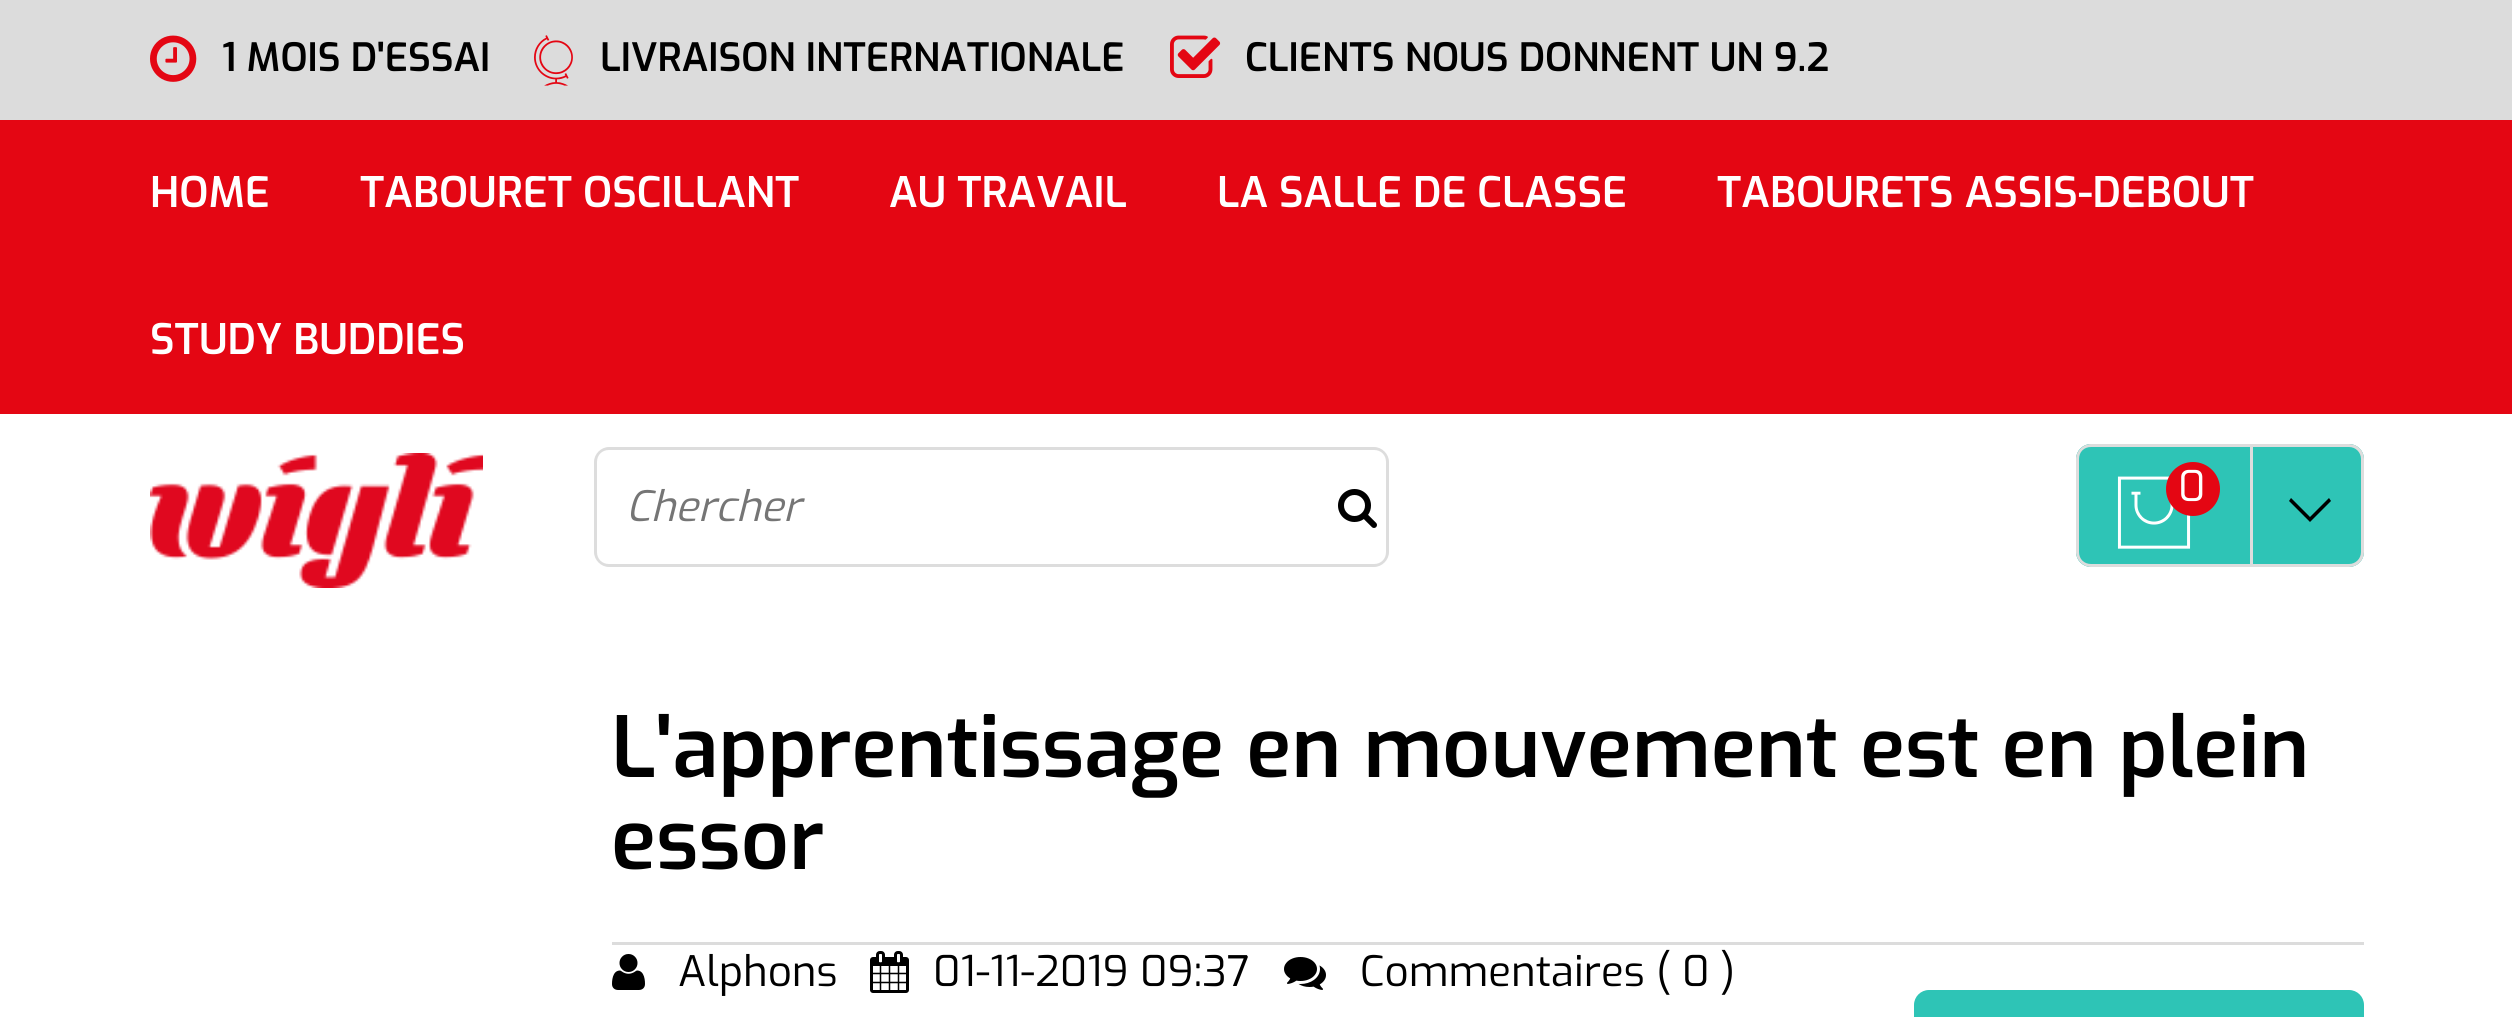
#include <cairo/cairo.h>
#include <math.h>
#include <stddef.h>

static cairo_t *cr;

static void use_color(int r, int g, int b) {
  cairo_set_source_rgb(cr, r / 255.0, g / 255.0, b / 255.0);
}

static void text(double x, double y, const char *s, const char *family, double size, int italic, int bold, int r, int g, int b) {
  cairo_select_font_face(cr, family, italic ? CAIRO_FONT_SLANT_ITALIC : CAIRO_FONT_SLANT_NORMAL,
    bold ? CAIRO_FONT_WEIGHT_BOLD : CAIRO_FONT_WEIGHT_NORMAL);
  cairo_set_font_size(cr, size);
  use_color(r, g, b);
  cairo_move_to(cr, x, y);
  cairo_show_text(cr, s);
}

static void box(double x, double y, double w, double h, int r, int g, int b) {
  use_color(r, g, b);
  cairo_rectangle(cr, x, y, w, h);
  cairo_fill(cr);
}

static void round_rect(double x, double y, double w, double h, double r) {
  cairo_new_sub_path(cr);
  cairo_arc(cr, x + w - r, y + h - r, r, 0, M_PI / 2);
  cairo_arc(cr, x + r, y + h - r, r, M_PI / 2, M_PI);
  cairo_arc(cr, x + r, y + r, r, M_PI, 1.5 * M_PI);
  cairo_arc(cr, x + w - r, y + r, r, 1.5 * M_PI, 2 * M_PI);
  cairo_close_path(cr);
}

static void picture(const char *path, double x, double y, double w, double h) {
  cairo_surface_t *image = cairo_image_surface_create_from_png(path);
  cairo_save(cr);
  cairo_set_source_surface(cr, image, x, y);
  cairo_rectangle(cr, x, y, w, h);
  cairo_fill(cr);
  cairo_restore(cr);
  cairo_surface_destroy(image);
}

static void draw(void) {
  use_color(255, 255, 255);
  cairo_paint(cr);
  box(0, 0, 2512, 120, 220, 220, 220);
  picture("img_01.png", 150, 35, 47, 47);
  picture("img_02.png", 534, 35, 39, 51);
  picture("img_03.png", 1170, 35, 51, 43);
  box(0, 120, 2512, 294, 228, 6, 19);
  picture("img_04.png", 150, 453, 333, 135);
  use_color(46, 196, 182);
  round_rect(2076, 444, 288, 123, 15);
  cairo_fill(cr);
  use_color(221, 221, 221);
  cairo_set_fill_rule(cr, CAIRO_FILL_RULE_EVEN_ODD);
  cairo_new_path(cr);
  cairo_move_to(cr, 2091, 444);
  cairo_line_to(cr, 2250, 444);
  cairo_line_to(cr, 2250, 567);
  cairo_line_to(cr, 2091, 567);
  cairo_curve_to(cr, 2083, 567, 2076, 560, 2076, 552);
  cairo_line_to(cr, 2076, 459);
  cairo_curve_to(cr, 2076, 451, 2083, 444, 2091, 444);
  cairo_close_path(cr);
  cairo_move_to(cr, 2091, 447);
  cairo_line_to(cr, 2250, 447);
  cairo_line_to(cr, 2250, 564);
  cairo_line_to(cr, 2091, 564);
  cairo_curve_to(cr, 2084, 564, 2079, 559, 2079, 552);
  cairo_line_to(cr, 2079, 459);
  cairo_curve_to(cr, 2079, 452, 2084, 447, 2091, 447);
  cairo_close_path(cr);
  cairo_fill(cr);
  picture("img_05.png", 2117, 476, 74, 73);
  use_color(228, 6, 19);
  cairo_arc(cr, 2193, 489, 27, 0, 2 * M_PI);
  cairo_fill(cr);
  cairo_new_path(cr);
  cairo_move_to(cr, 2251.5, 445.5);
  cairo_line_to(cr, 2349, 445.5);
  cairo_curve_to(cr, 2356.5, 445.5, 2362.5, 451.5, 2362.5, 459);
  cairo_line_to(cr, 2362.5, 552);
  cairo_curve_to(cr, 2362.5, 559.5, 2356.5, 565.5, 2349, 565.5);
  cairo_line_to(cr, 2251.5, 565.5);
  cairo_close_path(cr);
  use_color(221, 221, 221);
  cairo_set_line_width(cr, 3);
  cairo_stroke(cr);
  use_color(0, 0, 0);
  cairo_set_fill_rule(cr, CAIRO_FILL_RULE_WINDING);
  cairo_new_path(cr);
  cairo_move_to(cr, 2307, 519);
  cairo_line_to(cr, 2310, 522);
  cairo_line_to(cr, 2331, 501);
  cairo_line_to(cr, 2329, 498);
  cairo_line_to(cr, 2310, 517);
  cairo_line_to(cr, 2291, 498);
  cairo_line_to(cr, 2289, 501);
  cairo_close_path(cr);
  cairo_fill(cr);
  use_color(221, 221, 221);
  cairo_set_fill_rule(cr, CAIRO_FILL_RULE_EVEN_ODD);
  cairo_new_path(cr);
  cairo_move_to(cr, 609, 447);
  cairo_line_to(cr, 1308, 447);
  cairo_line_to(cr, 1308, 567);
  cairo_line_to(cr, 609, 567);
  cairo_curve_to(cr, 601, 567, 594, 560, 594, 552);
  cairo_line_to(cr, 594, 462);
  cairo_curve_to(cr, 594, 454, 601, 447, 609, 447);
  cairo_close_path(cr);
  cairo_move_to(cr, 609, 450);
  cairo_line_to(cr, 1308, 450);
  cairo_line_to(cr, 1308, 564);
  cairo_line_to(cr, 609, 564);
  cairo_curve_to(cr, 602, 564, 597, 559, 597, 552);
  cairo_line_to(cr, 597, 462);
  cairo_curve_to(cr, 597, 455, 602, 450, 609, 450);
  cairo_close_path(cr);
  cairo_fill(cr);
  cairo_new_path(cr);
  cairo_move_to(cr, 1308, 447);
  cairo_line_to(cr, 1374, 447);
  cairo_curve_to(cr, 1382, 447, 1389, 454, 1389, 462);
  cairo_line_to(cr, 1389, 552);
  cairo_curve_to(cr, 1389, 560, 1382, 567, 1374, 567);
  cairo_line_to(cr, 1308, 567);
  cairo_close_path(cr);
  cairo_move_to(cr, 1308, 450);
  cairo_line_to(cr, 1374, 450);
  cairo_curve_to(cr, 1381, 450, 1386, 455, 1386, 462);
  cairo_line_to(cr, 1386, 552);
  cairo_curve_to(cr, 1386, 559, 1381, 564, 1374, 564);
  cairo_line_to(cr, 1308, 564);
  cairo_close_path(cr);
  cairo_fill(cr);
  picture("img_06.png", 1338, 489, 39, 39);
  box(612, 942, 1752, 3, 220, 220, 220);
  picture("img_07.png", 612, 954, 33, 36);
  picture("img_08.png", 870, 951, 39, 42);
  picture("img_09.png", 1284, 957, 42, 33);
  use_color(46, 196, 182);
  round_rect(1914, 990, 450, 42, 15);
  cairo_fill(cr);
  text(222, 71, "1 MOIS D'ESSAI", "Exo SemiBold", 39, 0, 0, 0, 0, 0);
  text(600, 71, "LIVRAISON INTERNATIONALE", "Exo SemiBold", 39, 0, 0, 0, 0, 0);
  text(1245, 71, "CLIENTS NOUS DONNENT UN 9.2", "Exo SemiBold", 39, 0, 0, 0, 0, 0);
  text(150, 207, "HOME", "Exo SemiBold", 42, 0, 0, 255, 255, 255);
  text(360, 207, "TABOURET OSCILLANT", "Exo SemiBold", 42, 0, 0, 255, 255, 255);
  text(889, 207, "AU TRAVAIL", "Exo SemiBold", 42, 0, 0, 255, 255, 255);
  text(1217, 207, "LA SALLE DE CLASSE", "Exo SemiBold", 42, 0, 0, 255, 255, 255);
  text(1717, 207, "TABOURETS ASSIS-DEBOUT", "Exo SemiBold", 42, 0, 0, 255, 255, 255);
  text(150, 354, "STUDY BUDDIES", "Exo SemiBold", 42, 0, 0, 255, 255, 255);
  text(2178, 501, "0", "Exo", 42, 0, 0, 255, 255, 255);
  text(626, 521, "Chercher", "Exo", 42, 1, 0, 117, 117, 117);
  text(611, 777, "L'apprentissage en mouvement est en plein", "Exo SemiBold", 84, 0, 0, 0, 0, 0);
  text(611, 869, "essor", "Exo SemiBold", 84, 0, 0, 0, 0, 0);
  text(678, 986, "Alphons", "Exo", 42, 0, 0, 0, 0, 0);
  text(933, 986, "01-11-2019 09:37", "Exo", 42, 0, 0, 0, 0, 0);
  text(1360, 986, "Commentaires ( 0 )", "Exo", 42, 0, 0, 0, 0, 0);
}

int main(void) {
  cairo_surface_t *surface = cairo_image_surface_create(CAIRO_FORMAT_RGB24, 2512, 1017);
  cr = cairo_create(surface);
  cairo_font_options_t *options = cairo_font_options_create();
  cairo_font_options_set_hint_metrics(options, CAIRO_HINT_METRICS_OFF);
  cairo_font_options_set_hint_style(options, CAIRO_HINT_STYLE_NONE);
  cairo_set_font_options(cr, options);
  cairo_set_miter_limit(cr, 4);
  draw();
  cairo_surface_write_to_png(surface, "out.png");
  cairo_font_options_destroy(options);
  cairo_destroy(cr);
  cairo_surface_destroy(surface);
  return 0;
}
